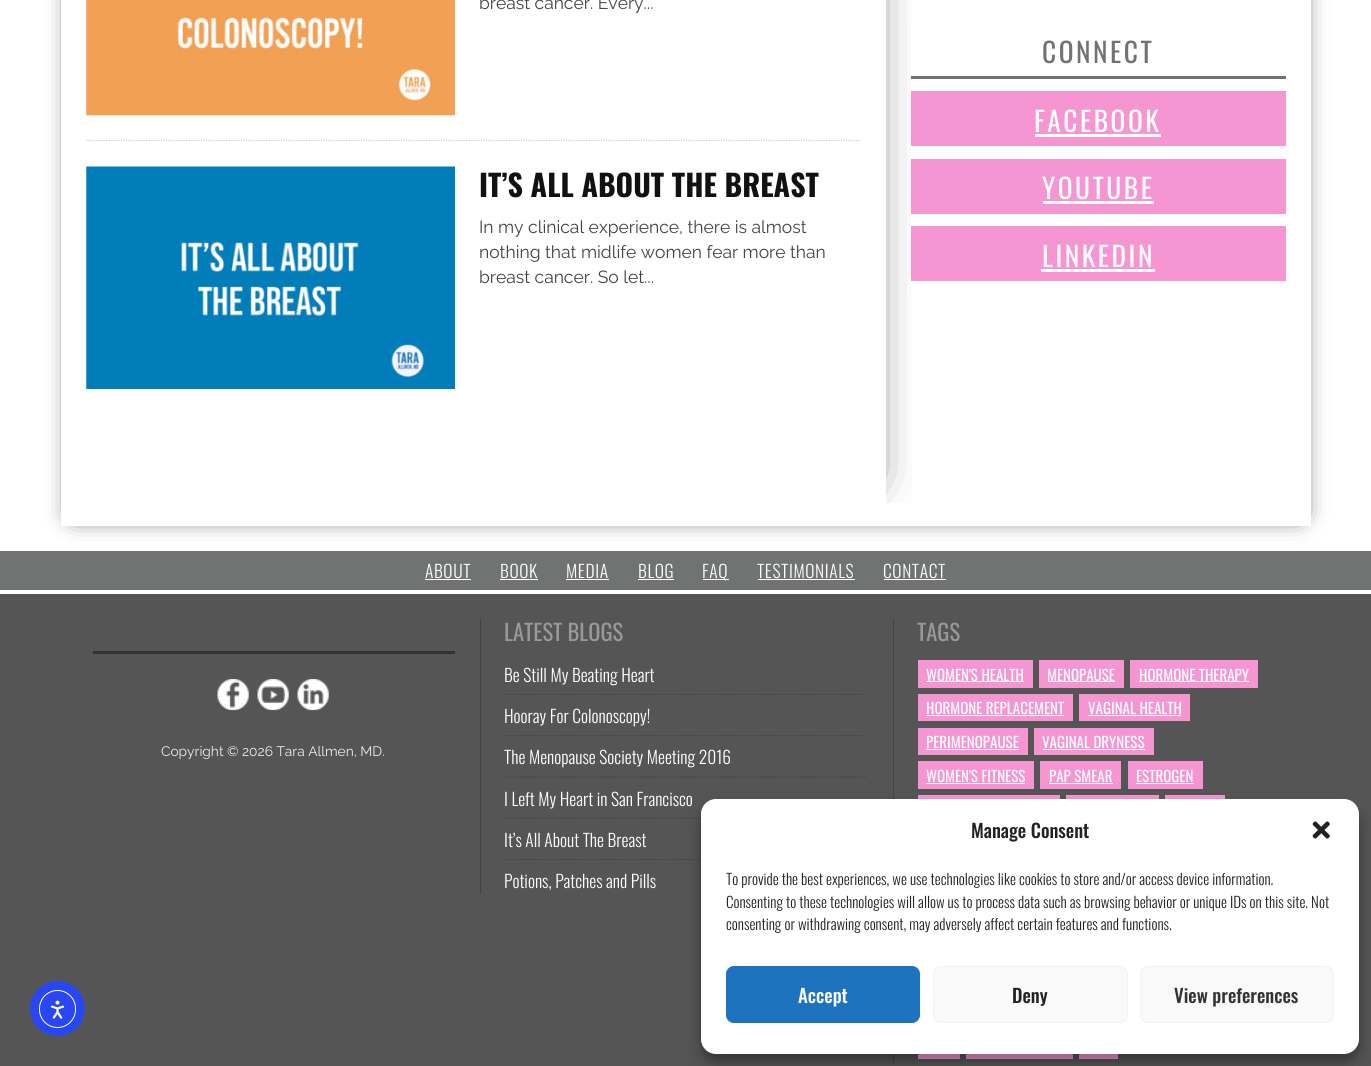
#include <cairo/cairo.h>
#include <math.h>
#include <stddef.h>

static cairo_t *cr;

static void use_color(int r, int g, int b) {
  cairo_set_source_rgb(cr, r / 255.0, g / 255.0, b / 255.0);
}

static void text(double x, double y, const char *s, const char *family, double size, int italic, int bold, int r, int g, int b) {
  cairo_select_font_face(cr, family, italic ? CAIRO_FONT_SLANT_ITALIC : CAIRO_FONT_SLANT_NORMAL,
    bold ? CAIRO_FONT_WEIGHT_BOLD : CAIRO_FONT_WEIGHT_NORMAL);
  cairo_set_font_size(cr, size);
  use_color(r, g, b);
  cairo_move_to(cr, x, y);
  cairo_show_text(cr, s);
}

static void spaced_text(double x, double y, const char *s, double letter, double word) {
  cairo_move_to(cr, x, y);
  while (*s) {
    char ch[5] = {0};
    int n = 0;
    do ch[n++] = *s++; while ((*s & 0xC0) == 0x80);
    cairo_show_text(cr, ch);
    cairo_rel_move_to(cr, letter + word * (*ch == ' '), 0);
  }
}

static void box(double x, double y, double w, double h, int r, int g, int b) {
  use_color(r, g, b);
  cairo_rectangle(cr, x, y, w, h);
  cairo_fill(cr);
}

static void round_rect(double x, double y, double w, double h, double r) {
  cairo_new_sub_path(cr);
  cairo_arc(cr, x + w - r, y + h - r, r, 0, M_PI / 2);
  cairo_arc(cr, x + r, y + h - r, r, M_PI / 2, M_PI);
  cairo_arc(cr, x + r, y + r, r, M_PI, 1.5 * M_PI);
  cairo_arc(cr, x + w - r, y + r, r, 1.5 * M_PI, 2 * M_PI);
  cairo_close_path(cr);
}

static void shadow(double x, double y, double w, double h, double r, double blur, double alpha) {
  cairo_push_group_with_content(cr, CAIRO_CONTENT_ALPHA);
  cairo_set_operator(cr, CAIRO_OPERATOR_SOURCE);
  for (int i = 15; i >= -15 && fmin(w, h) + blur * i / 3 > 0; i -= 2) {
    double e = blur * i / 6;
    cairo_set_source_rgba(cr, 0, 0, 0, alpha * erfc((i - 1) / 8.5) / 2);
    round_rect(x - e, y - e, w + 2 * e, h + 2 * e, fmax(0, fmin(r + e + blur * .6, fmin(w, h) / 2 + e)));
    cairo_fill(cr);
  }
  cairo_pattern_t *soft = cairo_pop_group(cr);
  cairo_mask(cr, soft);
  cairo_pattern_destroy(soft);
}

static void picture(const char *path, double x, double y, double w, double h) {
  cairo_surface_t *image = cairo_image_surface_create_from_png(path);
  cairo_save(cr);
  cairo_set_source_surface(cr, image, x, y);
  cairo_rectangle(cr, x, y, w, h);
  cairo_fill(cr);
  cairo_restore(cr);
  cairo_surface_destroy(image);
}

static void draw(void) {
  use_color(255, 255, 255);
  cairo_paint(cr);
  box(0, 551, 1371, 39, 112, 115, 114);
  use_color(0, 0, 0);
  shadow(74, -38, 1225, 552, 0, 12.5, 1);
  box(61, 0, 1250, 526, 255, 255, 255);
  cairo_save(cr);
  cairo_rectangle(cr, 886, 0, 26, 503);
  cairo_clip(cr);
  use_color(0, 0, 0);
  shadow(136, -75, 725, 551, 0, 25, 1);
  cairo_restore(cr);
  picture("img_01.png", 86, 0, 369, 116);
  cairo_new_path(cr);
  cairo_move_to(cr, 86, 140.5);
  cairo_line_to(cr, 861, 140.5);
  use_color(204, 204, 204);
  cairo_set_line_width(cr, 1.2);
  cairo_set_dash(cr, (double[]){1.25, 1.25}, 2, 0);
  cairo_stroke(cr);
  picture("img_02.png", 86, 166, 369, 223);
  box(911, 24, 8, 270, 255, 255, 255);
  box(911, 76, 375, 3, 112, 115, 114);
  box(911, 91, 375, 55, 245, 150, 211);
  box(1035, 134, 126, 3, 255, 255, 255);
  box(911, 159, 375, 55, 245, 150, 211);
  box(1043, 201, 111, 3, 255, 255, 255);
  box(911, 226, 375, 55, 245, 150, 211);
  box(1041, 269, 114, 3, 255, 255, 255);
  box(0, 594, 1371, 472, 85, 85, 85);
  box(425, 579, 46, 1, 255, 255, 255);
  box(500, 579, 38, 1, 255, 255, 255);
  box(566, 579, 43, 1, 255, 255, 255);
  box(638, 579, 36, 1, 255, 255, 255);
  box(703, 579, 26, 1, 255, 255, 255);
  box(758, 579, 97, 1, 255, 255, 255);
  box(884, 579, 62, 1, 255, 255, 255);
  box(93, 651, 362, 3, 51, 51, 51);
  picture("img_03.png", 217, 679, 32, 32);
  picture("img_04.png", 257, 679, 32, 32);
  picture("img_05.png", 297, 679, 32, 32);
  box(480, 619, 1, 275, 68, 68, 68);
  cairo_new_path(cr);
  cairo_move_to(cr, 505, 694.5);
  cairo_line_to(cr, 867.5, 694.5);
  cairo_stroke(cr);
  cairo_new_path(cr);
  cairo_move_to(cr, 505, 735.5);
  cairo_line_to(cr, 867.5, 735.5);
  cairo_stroke(cr);
  cairo_new_path(cr);
  cairo_move_to(cr, 505, 777);
  cairo_line_to(cr, 867.5, 777);
  cairo_stroke(cr);
  cairo_new_path(cr);
  cairo_move_to(cr, 505, 818);
  cairo_line_to(cr, 867.5, 818);
  cairo_stroke(cr);
  cairo_new_path(cr);
  cairo_move_to(cr, 505, 859.5);
  cairo_line_to(cr, 867.5, 859.5);
  cairo_stroke(cr);
  box(893, 619, 1, 446, 68, 68, 68);
  box(918, 660, 115, 28, 245, 150, 211);
  box(926, 681, 98, 1, 255, 255, 255);
  box(1039, 660, 85, 28, 245, 150, 211);
  box(1048, 681, 67, 1, 255, 255, 255);
  box(1130, 660, 128, 28, 245, 150, 211);
  box(1139, 681, 110, 1, 255, 255, 255);
  box(918, 694, 155, 27, 245, 150, 211);
  box(926, 715, 138, 1, 255, 255, 255);
  box(1079, 694, 111, 27, 245, 150, 211);
  box(1088, 715, 93, 1, 255, 255, 255);
  box(918, 728, 110, 27, 245, 150, 211);
  box(926, 749, 93, 1, 255, 255, 255);
  box(1034, 728, 120, 27, 245, 150, 211);
  box(1043, 749, 102, 1, 255, 255, 255);
  box(918, 761, 116, 28, 245, 150, 211);
  box(926, 783, 99, 1, 255, 255, 255);
  box(1040, 761, 81, 28, 245, 150, 211);
  box(1049, 783, 64, 1, 255, 255, 255);
  box(1128, 761, 75, 28, 245, 150, 211);
  box(1136, 783, 58, 1, 255, 255, 255);
  box(918, 795, 142, 4, 245, 150, 211);
  box(1066, 795, 93, 4, 245, 150, 211);
  box(1165, 795, 60, 4, 245, 150, 211);
  box(918, 1054, 42, 5, 245, 150, 211);
  box(966, 1054, 107, 5, 245, 150, 211);
  box(1079, 1054, 39, 5, 245, 150, 211);
  use_color(40, 71, 243);
  cairo_arc(cr, 57.5, 1008.5, 27.5, 0, 2 * M_PI);
  cairo_fill(cr);
  round_rect(39.5, 990.5, 36, 37, 18);
  use_color(255, 255, 255);
  cairo_set_line_width(cr, 1);
  cairo_set_dash(cr, NULL, 0, 0);
  cairo_stroke(cr);
  picture("img_06.png", 50, 1000, 14, 19);
  use_color(0, 0, 0);
  shadow(701, 806, 658, 255, 15, 4, 0.23);
  shadow(701, 811, 658, 255, 15, 12.5, 0.19);
  use_color(255, 255, 255);
  round_rect(701, 799, 658, 255, 15);
  cairo_fill(cr);
  picture("img_07.png", 1312, 821, 18, 18);
  use_color(30, 115, 190);
  round_rect(726.5, 966.5, 193, 56, 7.5);
  cairo_fill_preserve(cr);
  cairo_stroke(cr);
  use_color(249, 249, 249);
  round_rect(933.5, 966.5, 194, 56, 7.5);
  cairo_fill_preserve(cr);
  use_color(242, 242, 242);
  cairo_stroke(cr);
  use_color(249, 249, 249);
  round_rect(1140.5, 966.5, 193, 56, 7.5);
  cairo_fill_preserve(cr);
  use_color(242, 242, 242);
  cairo_stroke(cr);
  text(479, 9, "breast cancer. Every...", "Raleway", 17.5, 0, 0, 68, 68, 68);
  text(479, 197, "IT’S ALL ABOUT THE BREAST", "Oswald", 30, 0, 1, 17, 17, 17);
  text(479, 233, "In my clinical experience, there is almost", "Raleway", 17.5, 0, 0, 68, 68, 68);
  text(479, 258, "nothing that midlife women fear more than", "Raleway", 17.5, 0, 0, 68, 68, 68);
  text(479, 283, "breast cancer. So let...", "Raleway", 17.5, 0, 0, 68, 68, 68);
  cairo_select_font_face(cr, "Oswald", CAIRO_FONT_SLANT_NORMAL, CAIRO_FONT_WEIGHT_NORMAL);
  cairo_set_font_size(cr, 27.5);
  use_color(112, 115, 114);
  spaced_text(1042, 63, "CONNECT", 2.5, 0);
  use_color(255, 255, 255);
  spaced_text(1034, 132, "FACEBOOK", 2.5, 0);
  spaced_text(1042, 199, "YOUTUBE", 2.5, 0);
  spaced_text(1042, 267, "LINKEDIN", 2.5, 0);
  cairo_select_font_face(cr, "Oswald Light", CAIRO_FONT_SLANT_NORMAL, CAIRO_FONT_WEIGHT_NORMAL);
  cairo_set_font_size(cr, 17.5);
  spaced_text(425, 578, "ABOUT", 0.6, 0);
  spaced_text(500, 578, "BOOK", 0.6, 0);
  spaced_text(566, 578, "MEDIA", 0.6, 0);
  spaced_text(638, 578, "BLOG", 0.6, 0);
  spaced_text(702, 578, "FAQ", 0.6, 0);
  spaced_text(757, 578, "TESTIMONIALS", 0.6, 0);
  spaced_text(883, 578, "CONTACT", 0.6, 0);
  text(161, 756, "Copyright © 2026 Tara Allmen, MD.", "Raleway", 13.75, 0, 0, 237, 237, 237);
  text(504, 641, "LATEST BLOGS", "Oswald", 22.5, 0, 0, 153, 153, 153);
  text(504, 682, "Be Still My Beating Heart", "Oswald Light", 17.5, 0, 0, 255, 255, 255);
  text(504, 723, "Hooray For Colonoscopy!", "Oswald Light", 17.5, 0, 0, 255, 255, 255);
  text(504, 764, "The Menopause Society Meeting 2016", "Oswald Light", 17.5, 0, 0, 255, 255, 255);
  text(504, 806, "I Left My Heart in San Francisco", "Oswald Light", 17.5, 0, 0, 255, 255, 255);
  text(504, 847, "It’s All About The Breast", "Oswald Light", 17.5, 0, 0, 255, 255, 255);
  text(504, 888, "Potions, Patches and Pills", "Oswald Light", 17.5, 0, 0, 255, 255, 255);
  text(917, 641, "TAGS", "Oswald", 22.5, 0, 0, 153, 153, 153);
  text(926, 681, "WOMEN'S HEALTH", "Oswald", 15, 0, 0, 255, 255, 255);
  text(1047, 681, "MENOPAUSE", "Oswald", 15, 0, 0, 255, 255, 255);
  text(1139, 681, "HORMONE THERAPY", "Oswald", 15, 0, 0, 255, 255, 255);
  text(926, 714, "HORMONE REPLACEMENT", "Oswald", 15, 0, 0, 255, 255, 255);
  text(1088, 714, "VAGINAL HEALTH", "Oswald", 15, 0, 0, 255, 255, 255);
  text(926, 748, "PERIMENOPAUSE", "Oswald", 15, 0, 0, 255, 255, 255);
  text(1042, 748, "VAGINAL DRYNESS", "Oswald", 15, 0, 0, 255, 255, 255);
  text(926, 782, "WOMEN'S FITNESS", "Oswald", 15, 0, 0, 255, 255, 255);
  text(1049, 782, "PAP SMEAR", "Oswald", 15, 0, 0, 255, 255, 255);
  text(1136, 782, "ESTROGEN", "Oswald", 15, 0, 0, 255, 255, 255);
  text(971, 838, "Manage Consent", "Oswald Medium", 18.75, 0, 0, 34, 34, 34);
  text(726, 885, "To provide the best experiences, we use technologies like cookies to store and/or access device information.", "Oswald Light", 15, 0, 0, 34, 34, 34);
  text(726, 908, "Consenting to these technologies will allow us to process data such as browsing behavior or unique IDs on this site. Not", "Oswald Light", 15, 0, 0, 34, 34, 34);
  text(726, 930, "consenting or withdrawing consent, may adversely affect certain features and functions.", "Oswald Light", 15, 0, 0, 34, 34, 34);
  text(798, 1003, "Accept", "Oswald Medium", 18.75, 0, 0, 255, 255, 255);
  text(1012, 1003, "Deny", "Oswald Medium", 18.75, 0, 0, 34, 34, 34);
  text(1174, 1003, "View preferences", "Oswald Medium", 18.75, 0, 0, 51, 51, 51);
}

int main(void) {
  cairo_surface_t *surface = cairo_image_surface_create(CAIRO_FORMAT_RGB24, 1371, 1066);
  cr = cairo_create(surface);
  cairo_font_options_t *options = cairo_font_options_create();
  cairo_font_options_set_hint_metrics(options, CAIRO_HINT_METRICS_OFF);
  cairo_font_options_set_hint_style(options, CAIRO_HINT_STYLE_NONE);
  cairo_set_font_options(cr, options);
  cairo_set_miter_limit(cr, 4);
  draw();
  cairo_surface_write_to_png(surface, "out.png");
  cairo_font_options_destroy(options);
  cairo_destroy(cr);
  cairo_surface_destroy(surface);
  return 0;
}
